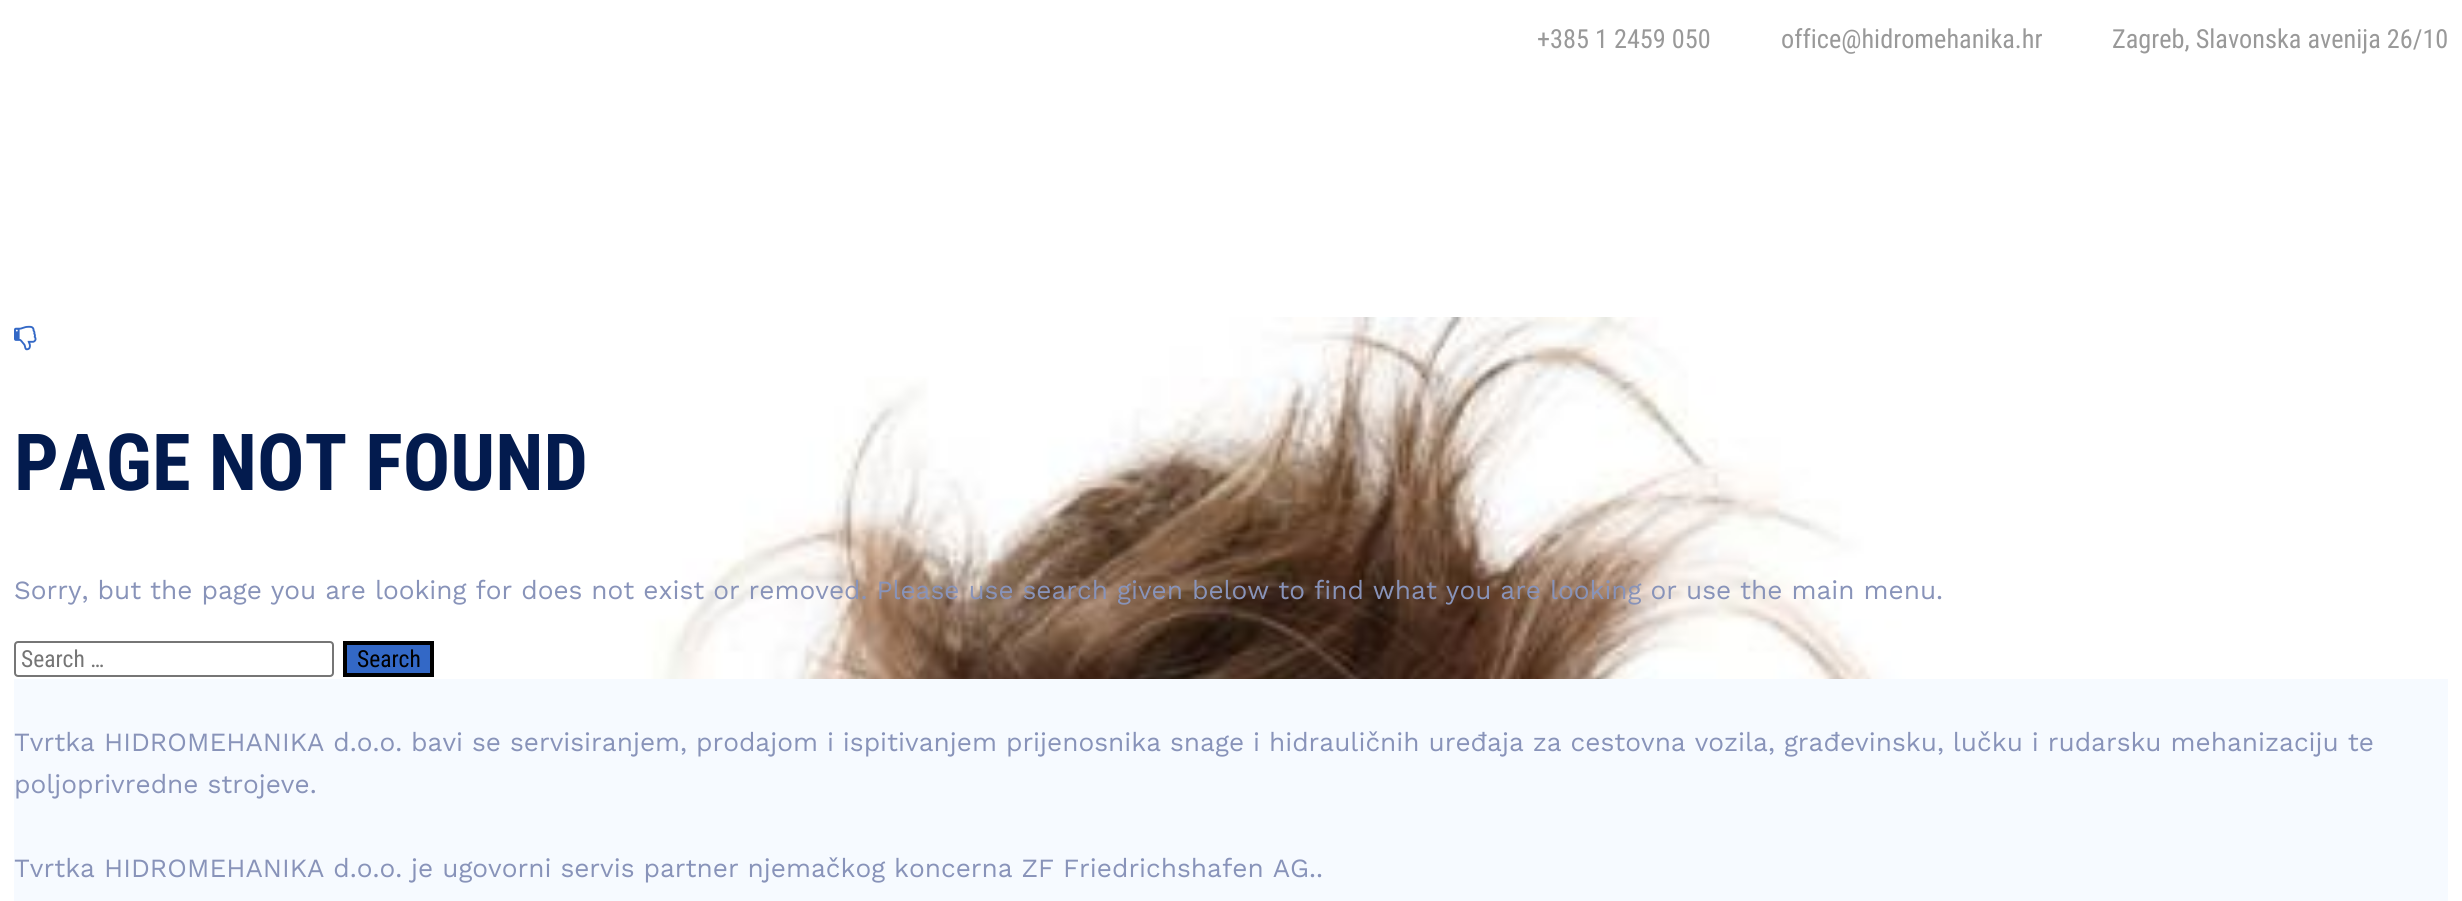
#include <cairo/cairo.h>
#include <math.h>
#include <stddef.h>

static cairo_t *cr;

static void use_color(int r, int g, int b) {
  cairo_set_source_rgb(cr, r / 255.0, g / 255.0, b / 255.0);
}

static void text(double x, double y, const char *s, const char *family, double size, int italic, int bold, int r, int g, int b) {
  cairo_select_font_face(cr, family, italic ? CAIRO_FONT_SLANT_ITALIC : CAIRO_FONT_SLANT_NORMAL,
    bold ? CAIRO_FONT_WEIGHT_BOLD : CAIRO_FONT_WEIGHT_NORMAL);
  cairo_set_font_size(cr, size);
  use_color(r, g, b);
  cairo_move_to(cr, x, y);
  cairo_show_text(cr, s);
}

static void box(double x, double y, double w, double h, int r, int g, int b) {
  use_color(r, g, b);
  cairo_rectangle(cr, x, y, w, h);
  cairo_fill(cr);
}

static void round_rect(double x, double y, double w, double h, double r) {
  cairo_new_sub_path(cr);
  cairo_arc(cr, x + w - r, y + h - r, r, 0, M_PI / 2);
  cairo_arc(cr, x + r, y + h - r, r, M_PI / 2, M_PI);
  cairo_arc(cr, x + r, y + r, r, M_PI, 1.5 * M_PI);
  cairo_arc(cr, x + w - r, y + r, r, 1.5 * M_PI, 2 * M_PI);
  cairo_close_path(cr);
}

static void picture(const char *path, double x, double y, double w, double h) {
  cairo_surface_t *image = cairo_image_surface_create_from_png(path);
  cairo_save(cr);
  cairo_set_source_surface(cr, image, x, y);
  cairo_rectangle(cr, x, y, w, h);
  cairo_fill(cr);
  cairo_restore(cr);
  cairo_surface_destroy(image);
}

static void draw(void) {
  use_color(255, 255, 255);
  cairo_paint(cr);
  picture("img_01.png", 14, 317, 2434, 362);
  picture("img_02.png", 14, 325, 23, 26);
  round_rect(15, 642, 318, 34, 3);
  use_color(118, 118, 118);
  cairo_stroke(cr);
  use_color(51, 104, 198);
  cairo_rectangle(cr, 345, 643, 87, 32);
  cairo_fill_preserve(cr);
  use_color(0, 0, 0);
  cairo_set_line_width(cr, 4);
  cairo_stroke(cr);
  box(14, 679, 2434, 222, 246, 250, 255);
  text(1537, 48, "+385 1 2459 050", "Roboto Condensed", 26.25, 0, 0, 153, 153, 153);
  text(1781, 48, "office@hidromehanika.hr", "Roboto Condensed", 26.25, 0, 0, 153, 153, 153);
  text(2112, 48, "Zagreb, Slavonska avenija 26/10", "Roboto Condensed", 26.25, 0, 0, 153, 153, 153);
  text(14, 490, "PAGE NOT FOUND", "Roboto Condensed", 78.75, 0, 1, 3, 27, 78);
  text(14, 599, "Sorry, but the page you are looking for does not exist or removed. Please use search given below to find what you are looking or use the main menu.", "Work Sans", 26.25, 0, 0, 136, 147, 185);
  text(21, 667, "Search …", "Roboto Condensed", 23.5, 0, 0, 117, 117, 117);
  text(357, 667, "Search", "Roboto Condensed", 23.5, 0, 0, 0, 0, 0);
  text(14, 751, "Tvrtka HIDROMEHANIKA d.o.o. bavi se servisiranjem, prodajom i ispitivanjem prijenosnika snage i hidrauličnih uređaja za cestovna vozila, građevinsku, lučku i rudarsku mehanizaciju te", "Work Sans", 26.25, 0, 0, 136, 147, 185);
  text(14, 793, "poljoprivredne strojeve.", "Work Sans", 26.25, 0, 0, 136, 147, 185);
  text(14, 877, "Tvrtka HIDROMEHANIKA d.o.o. je ugovorni servis partner njemačkog koncerna ZF Friedrichshafen AG..", "Work Sans", 26.25, 0, 0, 136, 147, 185);
}

int main(void) {
  cairo_surface_t *surface = cairo_image_surface_create(CAIRO_FORMAT_RGB24, 2462, 901);
  cr = cairo_create(surface);
  cairo_font_options_t *options = cairo_font_options_create();
  cairo_font_options_set_hint_metrics(options, CAIRO_HINT_METRICS_OFF);
  cairo_font_options_set_hint_style(options, CAIRO_HINT_STYLE_NONE);
  cairo_set_font_options(cr, options);
  cairo_set_miter_limit(cr, 4);
  draw();
  cairo_surface_write_to_png(surface, "out.png");
  cairo_font_options_destroy(options);
  cairo_destroy(cr);
  cairo_surface_destroy(surface);
  return 0;
}
